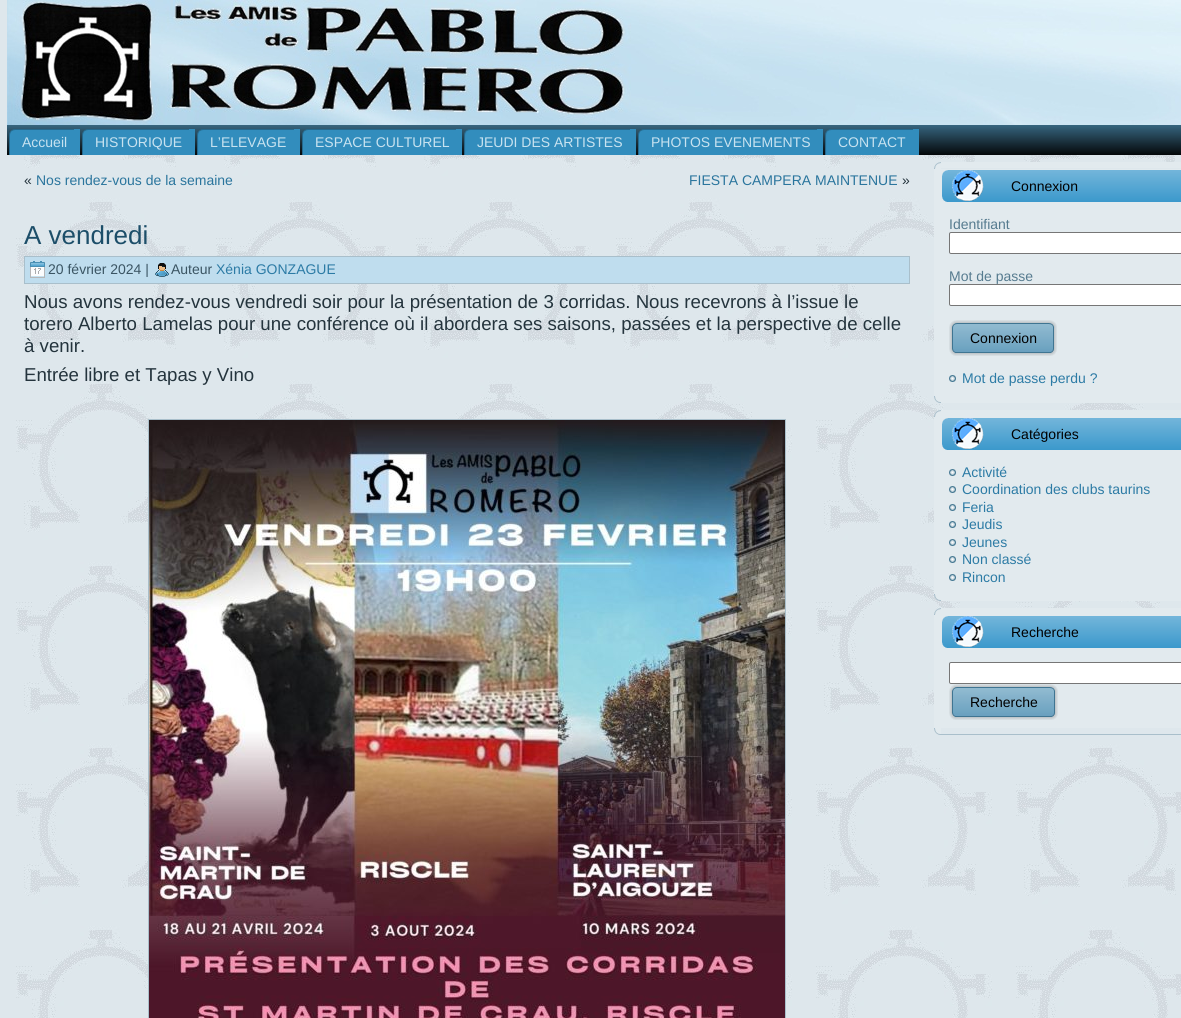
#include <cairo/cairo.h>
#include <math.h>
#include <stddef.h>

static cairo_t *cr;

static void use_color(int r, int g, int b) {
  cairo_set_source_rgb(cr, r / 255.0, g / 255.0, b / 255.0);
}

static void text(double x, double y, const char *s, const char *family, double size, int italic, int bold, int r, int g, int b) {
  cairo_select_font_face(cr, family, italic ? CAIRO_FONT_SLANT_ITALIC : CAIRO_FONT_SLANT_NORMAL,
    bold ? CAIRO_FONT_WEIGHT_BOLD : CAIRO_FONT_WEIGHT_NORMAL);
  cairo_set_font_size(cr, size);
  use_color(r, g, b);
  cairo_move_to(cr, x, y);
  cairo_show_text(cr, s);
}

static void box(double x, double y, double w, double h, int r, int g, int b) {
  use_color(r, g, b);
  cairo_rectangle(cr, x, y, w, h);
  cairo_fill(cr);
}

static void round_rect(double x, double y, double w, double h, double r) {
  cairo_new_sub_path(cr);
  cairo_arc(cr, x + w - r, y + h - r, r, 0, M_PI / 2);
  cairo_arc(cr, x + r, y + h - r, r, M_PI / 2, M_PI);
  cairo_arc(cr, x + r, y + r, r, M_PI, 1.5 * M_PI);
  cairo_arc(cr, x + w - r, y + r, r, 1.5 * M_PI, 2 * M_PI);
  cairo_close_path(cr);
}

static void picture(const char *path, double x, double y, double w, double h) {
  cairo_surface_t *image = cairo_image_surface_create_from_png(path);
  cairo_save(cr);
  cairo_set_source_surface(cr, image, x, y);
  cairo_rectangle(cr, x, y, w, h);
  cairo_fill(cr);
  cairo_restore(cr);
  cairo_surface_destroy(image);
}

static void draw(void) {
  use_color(255, 255, 255);
  cairo_paint(cr);
  picture("img_01.png", 0, 0, 1181, 1018);
  picture("img_02.png", 7, 0, 1174, 125);
  picture("img_03.png", 7, 125, 1174, 30);
  picture("img_04.png", 9, 129, 65, 26);
  box(74, 129, 6, 26, 50, 141, 189);
  picture("img_05.png", 82, 129, 107, 26);
  box(189, 129, 6, 26, 50, 141, 189);
  picture("img_06.png", 197, 129, 97, 26);
  box(294, 129, 6, 26, 50, 141, 189);
  picture("img_07.png", 302, 129, 154, 26);
  box(456, 129, 6, 26, 50, 141, 189);
  picture("img_08.png", 464, 129, 166, 26);
  box(630, 129, 6, 26, 50, 141, 189);
  picture("img_09.png", 638, 129, 179, 26);
  box(817, 129, 6, 26, 50, 141, 189);
  picture("img_10.png", 825, 129, 88, 26);
  box(913, 129, 6, 26, 50, 141, 189);
  use_color(191, 221, 238);
  cairo_rectangle(cr, 24.5, 256.5, 885, 27);
  cairo_fill_preserve(cr);
  use_color(169, 191, 203);
  cairo_set_line_width(cr, 1);
  cairo_stroke(cr);
  picture("img_11.png", 30, 261, 15, 17);
  picture("img_12.png", 155, 263, 14, 14);
  cairo_rectangle(cr, 148.5, 419.5, 637, 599);
  cairo_stroke(cr);
  picture("img_13.png", 149, 420, 636, 598);
  picture("img_14.png", 934, 162, 7, 7);
  box(941, 162, 240, 6, 226, 234, 238);
  box(934, 169, 247, 227, 226, 234, 238);
  picture("img_15.png", 942, 170, 213, 32);
  picture("img_16.png", 1155, 170, 26, 32);
  use_color(255, 255, 255);
  round_rect(949.5, 232.5, 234, 21, 1.5);
  cairo_fill_preserve(cr);
  use_color(118, 118, 118);
  cairo_stroke(cr);
  use_color(255, 255, 255);
  round_rect(949.5, 284.5, 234, 21, 1.5);
  cairo_fill_preserve(cr);
  use_color(118, 118, 118);
  cairo_stroke(cr);
  picture("img_17.png", 949, 320, 97, 36);
  picture("img_18.png", 1046, 320, 11, 36);
  picture("img_19.png", 949, 375, 7, 7);
  picture("img_20.png", 934, 396, 7, 7);
  box(941, 396, 240, 7, 226, 234, 238);
  picture("img_21.png", 934, 410, 7, 7);
  box(941, 410, 240, 7, 226, 234, 238);
  box(934, 417, 247, 177, 226, 234, 238);
  picture("img_15.png", 942, 418, 213, 32);
  picture("img_16.png", 1155, 418, 26, 32);
  picture("img_19.png", 949, 469, 7, 7);
  picture("img_19.png", 949, 486, 7, 7);
  picture("img_19.png", 949, 504, 7, 7);
  picture("img_19.png", 949, 521, 7, 7);
  picture("img_19.png", 949, 539, 7, 7);
  picture("img_19.png", 949, 556, 7, 7);
  picture("img_19.png", 949, 574, 7, 7);
  picture("img_22.png", 934, 594, 7, 7);
  box(941, 594, 240, 7, 226, 234, 238);
  picture("img_23.png", 934, 608, 7, 7);
  box(941, 608, 240, 7, 226, 234, 238);
  box(934, 615, 247, 113, 226, 234, 238);
  picture("img_15.png", 942, 616, 213, 32);
  picture("img_16.png", 1155, 616, 26, 32);
  use_color(255, 255, 255);
  round_rect(949.5, 662.5, 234, 21, 1.5);
  cairo_fill_preserve(cr);
  use_color(118, 118, 118);
  cairo_stroke(cr);
  picture("img_24.png", 949, 684, 98, 36);
  picture("img_18.png", 1047, 684, 11, 36);
  picture("img_20.png", 934, 728, 7, 7);
  box(941, 734, 240, 1, 169, 191, 203);
  text(22, 147, "Accueil", "Liberation Sans", 14, 0, 0, 199, 226, 240);
  text(95, 147, "HISTORIQUE", "Liberation Sans", 14, 0, 0, 199, 226, 240);
  text(210, 147, "L’ELEVAGE", "Liberation Sans", 14, 0, 0, 199, 226, 240);
  text(315, 147, "ESPACE CULTUREL", "Liberation Sans", 14, 0, 0, 199, 226, 240);
  text(477, 147, "JEUDI DES ARTISTES", "Liberation Sans", 14, 0, 0, 199, 226, 240);
  text(651, 147, "PHOTOS EVENEMENTS", "Liberation Sans", 14, 0, 0, 199, 226, 240);
  text(838, 147, "CONTACT", "Liberation Sans", 14, 0, 0, 199, 226, 240);
  text(24, 185, "«", "Liberation Sans", 14, 0, 0, 36, 52, 61);
  text(36, 185, "Nos rendez-vous de la semaine", "Liberation Sans", 14, 0, 0, 42, 117, 157);
  text(689, 185, "FIESTA CAMPERA MAINTENUE", "Liberation Sans", 14, 0, 0, 42, 117, 157);
  text(902, 185, "»", "Liberation Sans", 14, 0, 0, 36, 52, 61);
  text(24, 244, "A vendredi", "Liberation Sans", 26, 0, 0, 28, 78, 105);
  text(48, 274, "20 février 2024 |", "Liberation Sans", 14, 0, 0, 59, 85, 99);
  text(171, 274, "Auteur", "Liberation Sans", 14, 0, 0, 59, 85, 99);
  text(216, 274, "Xénia GONZAGUE", "Liberation Sans", 14, 0, 0, 44, 123, 165);
  text(24, 308, "Nous avons rendez-vous vendredi soir pour la présentation de 3 corridas. Nous recevrons à l’issue le", "Liberation Sans", 18.65, 0, 0, 36, 52, 61);
  text(24, 330, "torero Alberto Lamelas pour une conférence où il abordera ses saisons, passées et la perspective de celle", "Liberation Sans", 18.65, 0, 0, 36, 52, 61);
  text(24, 352, "à venir.", "Liberation Sans", 18.65, 0, 0, 36, 52, 61);
  text(24, 381, "Entrée libre et Tapas y Vino", "Liberation Sans", 18.65, 0, 0, 36, 52, 61);
  text(1011, 191, "Connexion", "Liberation Sans", 14, 0, 0, 0, 0, 0);
  text(949, 229, "Identifiant", "Liberation Sans", 14, 0, 0, 86, 123, 143);
  text(949, 281, "Mot de passe", "Liberation Sans", 14, 0, 0, 86, 123, 143);
  text(970, 343, "Connexion", "Liberation Sans", 14, 0, 0, 0, 0, 0);
  text(962, 383, "Mot de passe perdu ?", "Liberation Sans", 14, 0, 0, 44, 123, 165);
  text(1011, 439, "Catégories", "Liberation Sans", 14, 0, 0, 0, 0, 0);
  text(962, 477, "Activité", "Liberation Sans", 14, 0, 0, 44, 123, 165);
  text(962, 494, "Coordination des clubs taurins", "Liberation Sans", 14, 0, 0, 44, 123, 165);
  text(962, 512, "Feria", "Liberation Sans", 14, 0, 0, 44, 123, 165);
  text(962, 529, "Jeudis", "Liberation Sans", 14, 0, 0, 44, 123, 165);
  text(962, 547, "Jeunes", "Liberation Sans", 14, 0, 0, 44, 123, 165);
  text(962, 564, "Non classé", "Liberation Sans", 14, 0, 0, 44, 123, 165);
  text(962, 582, "Rincon", "Liberation Sans", 14, 0, 0, 44, 123, 165);
  text(1011, 637, "Recherche", "Liberation Sans", 14, 0, 0, 0, 0, 0);
  text(970, 707, "Recherche", "Liberation Sans", 14, 0, 0, 0, 0, 0);
}

int main(void) {
  cairo_surface_t *surface = cairo_image_surface_create(CAIRO_FORMAT_RGB24, 1181, 1018);
  cr = cairo_create(surface);
  cairo_font_options_t *options = cairo_font_options_create();
  cairo_font_options_set_hint_metrics(options, CAIRO_HINT_METRICS_OFF);
  cairo_font_options_set_hint_style(options, CAIRO_HINT_STYLE_NONE);
  cairo_set_font_options(cr, options);
  cairo_set_miter_limit(cr, 4);
  draw();
  cairo_surface_write_to_png(surface, "out.png");
  cairo_font_options_destroy(options);
  cairo_destroy(cr);
  cairo_surface_destroy(surface);
  return 0;
}
